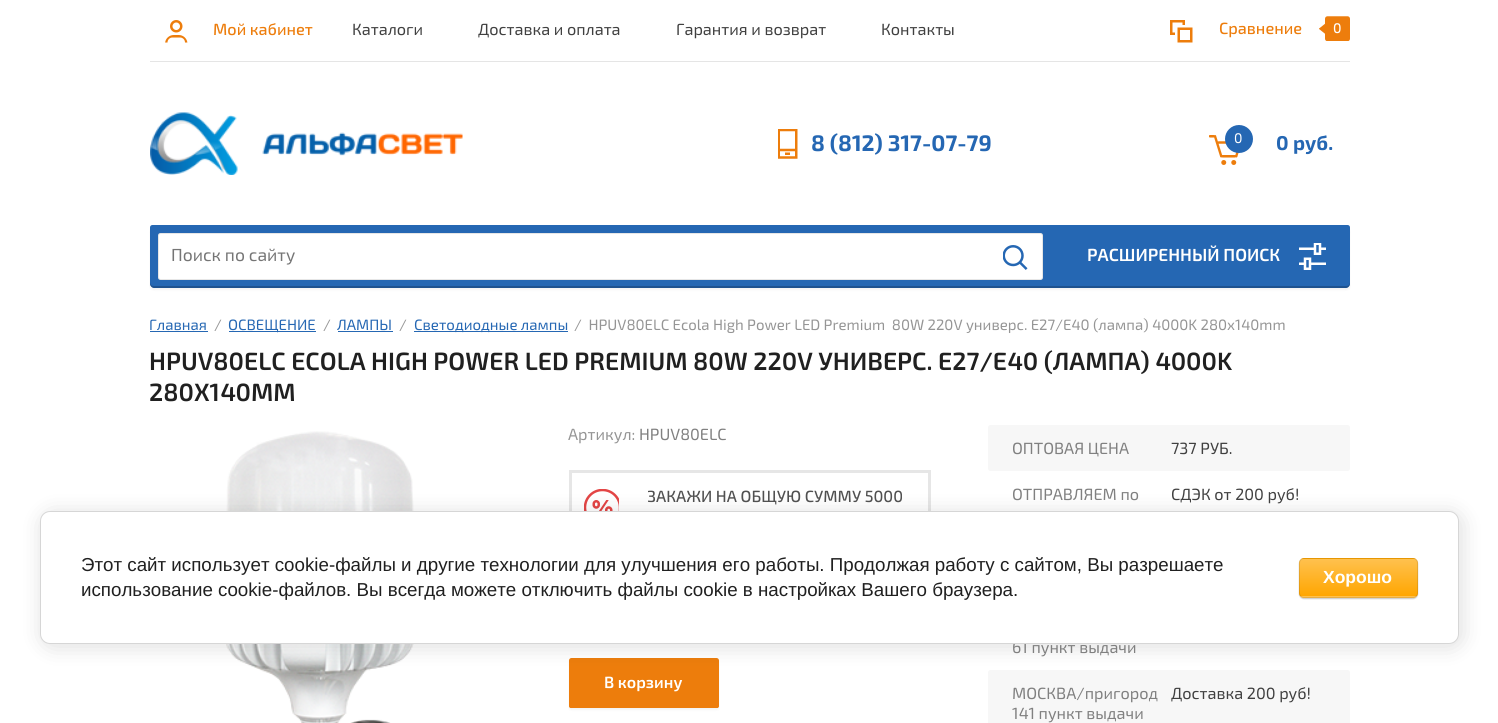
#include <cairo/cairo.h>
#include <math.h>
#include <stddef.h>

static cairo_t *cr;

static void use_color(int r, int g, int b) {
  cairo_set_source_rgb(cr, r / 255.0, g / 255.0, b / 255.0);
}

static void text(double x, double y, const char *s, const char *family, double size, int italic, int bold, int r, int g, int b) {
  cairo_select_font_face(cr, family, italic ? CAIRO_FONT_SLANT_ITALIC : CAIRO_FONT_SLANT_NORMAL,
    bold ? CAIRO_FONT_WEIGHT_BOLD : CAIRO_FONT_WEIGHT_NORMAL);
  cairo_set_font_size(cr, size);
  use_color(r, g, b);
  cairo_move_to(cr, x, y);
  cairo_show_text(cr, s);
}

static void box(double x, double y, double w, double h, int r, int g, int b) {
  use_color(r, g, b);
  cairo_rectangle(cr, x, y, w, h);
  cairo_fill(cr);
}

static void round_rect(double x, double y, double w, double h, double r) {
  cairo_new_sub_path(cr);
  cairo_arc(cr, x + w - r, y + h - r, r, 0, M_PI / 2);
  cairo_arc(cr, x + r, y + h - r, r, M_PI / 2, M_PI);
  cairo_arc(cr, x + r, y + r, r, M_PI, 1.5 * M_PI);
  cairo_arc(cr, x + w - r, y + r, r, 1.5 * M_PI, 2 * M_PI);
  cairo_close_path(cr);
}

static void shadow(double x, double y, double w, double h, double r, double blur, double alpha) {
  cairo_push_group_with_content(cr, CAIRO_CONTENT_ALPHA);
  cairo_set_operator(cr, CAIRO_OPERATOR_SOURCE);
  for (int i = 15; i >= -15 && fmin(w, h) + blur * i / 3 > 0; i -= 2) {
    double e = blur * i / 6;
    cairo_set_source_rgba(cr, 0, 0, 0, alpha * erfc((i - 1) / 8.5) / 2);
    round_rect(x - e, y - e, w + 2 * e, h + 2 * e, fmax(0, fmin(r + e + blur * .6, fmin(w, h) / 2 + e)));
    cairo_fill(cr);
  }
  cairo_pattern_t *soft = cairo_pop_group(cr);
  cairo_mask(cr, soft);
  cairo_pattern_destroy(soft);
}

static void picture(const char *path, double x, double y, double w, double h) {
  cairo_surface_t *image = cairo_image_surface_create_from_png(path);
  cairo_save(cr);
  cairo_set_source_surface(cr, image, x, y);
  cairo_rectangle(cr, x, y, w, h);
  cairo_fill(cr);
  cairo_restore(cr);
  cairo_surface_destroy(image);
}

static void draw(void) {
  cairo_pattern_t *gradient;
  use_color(255, 255, 255);
  cairo_paint(cr);
  box(150, 61, 1200, 1, 229, 229, 229);
  picture("img_01.png", 165, 20, 23, 23);
  picture("img_02.png", 1170, 20, 23, 23);
  picture("img_03.png", 1319, 16, 31, 25);
  picture("img_04.png", 150, 112, 313, 63);
  picture("img_05.png", 778, 129, 20, 30);
  picture("img_06.png", 1209, 135, 30, 30);
  use_color(37, 103, 179);
  cairo_arc(cr, 1239, 139, 14, 0, 2 * M_PI);
  cairo_fill(cr);
  use_color(0, 0, 0);
  shadow(150, 228, 1200, 62, 4, 1, 0.05);
  use_color(37, 103, 179);
  cairo_new_path(cr);
  cairo_move_to(cr, 152.5, 225);
  cairo_line_to(cr, 1347.5, 225);
  cairo_curve_to(cr, 1349, 225, 1350, 226, 1350, 227.5);
  cairo_line_to(cr, 1350, 284);
  cairo_curve_to(cr, 1350, 286, 1348, 288, 1346, 288);
  cairo_line_to(cr, 154, 288);
  cairo_curve_to(cr, 152, 288, 150, 286, 150, 284);
  cairo_line_to(cr, 150, 227.5);
  cairo_curve_to(cr, 150, 226, 151, 225, 152.5, 225);
  cairo_close_path(cr);
  cairo_fill(cr);
  cairo_set_source_rgba(cr, 0, 0, 0, 0.2);
  cairo_new_path(cr);
  cairo_move_to(cr, 150, 282);
  cairo_line_to(cr, 150, 284);
  cairo_curve_to(cr, 150, 286, 152, 288, 154, 288);
  cairo_line_to(cr, 1346, 288);
  cairo_curve_to(cr, 1348, 288, 1350, 286, 1350, 284);
  cairo_line_to(cr, 1350, 282);
  cairo_curve_to(cr, 1350, 285, 1348, 286, 1346, 286);
  cairo_line_to(cr, 154, 286);
  cairo_curve_to(cr, 152, 286, 150, 285, 150, 282);
  cairo_close_path(cr);
  cairo_fill(cr);
  use_color(255, 255, 255);
  round_rect(158, 233, 885, 47, 2.5);
  cairo_fill(cr);
  round_rect(158.5, 233.5, 884, 46, 2);
  cairo_set_source_rgba(cr, 0, 0, 0, 0.1);
  cairo_set_line_width(cr, 1);
  cairo_stroke(cr);
  picture("img_07.png", 1003, 245, 25, 25);
  picture("img_08.png", 1299, 243, 27, 27);
  box(150, 331, 58, 1, 37, 103, 179);
  box(229, 331, 87, 1, 37, 103, 179);
  box(338, 331, 55, 1, 37, 103, 179);
  box(414, 331, 154, 1, 37, 103, 179);
  picture("img_09.png", 226, 431, 188, 292);
  cairo_rectangle(cr, 570.5, 471.5, 359, 70);
  use_color(230, 230, 230);
  cairo_set_line_width(cr, 3);
  cairo_stroke(cr);
  picture("img_10.png", 584, 489, 35, 22);
  use_color(0, 0, 0);
  shadow(569, 660, 150, 50, 2.5, 1, 0.05);
  use_color(237, 125, 12);
  round_rect(569, 658, 150, 50, 2.5);
  cairo_fill(cr);
  cairo_new_path(cr);
  cairo_move_to(cr, 569, 704);
  cairo_curve_to(cr, 569, 706, 569, 708, 571, 708);
  cairo_line_to(cr, 717, 708);
  cairo_curve_to(cr, 719, 708, 719, 706, 719, 704);
  cairo_curve_to(cr, 719, 705, 718, 706, 716, 706);
  cairo_line_to(cr, 571, 706);
  cairo_curve_to(cr, 570, 706, 569, 705, 569, 704);
  cairo_close_path(cr);
  cairo_fill(cr);
  use_color(247, 247, 247);
  round_rect(988, 425, 362, 46, 2.5);
  cairo_fill(cr);
  round_rect(988, 670, 362, 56, 2.5);
  cairo_fill(cr);
  use_color(0, 0, 0);
  shadow(43, 514, 1418, 132, 10, 11, 0.14);
  text(213, 35, "Мой кабинет", "Exo 2 Medium", 16.25, 0, 0, 237, 125, 12);
  text(352, 35, "Каталоги", "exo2", 16.25, 0, 0, 64, 64, 64);
  text(478, 35, "Доставка и оплата", "exo2", 16.25, 0, 0, 64, 64, 64);
  text(676, 35, "Гарантия и возврат", "exo2", 16.25, 0, 0, 64, 64, 64);
  text(881, 35, "Контакты", "exo2", 16.25, 0, 0, 64, 64, 64);
  text(1219, 34, "Сравнение", "Exo 2 Medium", 16.25, 0, 0, 237, 125, 12);
  text(1333, 33, "0", "Exo 2 Medium", 14, 0, 0, 255, 255, 255);
  text(811, 151, "8 (812) 317-07-79", "exo2", 22.5, 0, 1, 37, 103, 179);
  text(1234, 143, "0", "exo2", 14, 0, 0, 255, 255, 255);
  text(1276, 150, "0 руб.", "exo2", 20, 0, 1, 37, 103, 179);
  text(171, 261, "Поиск по сайту", "exo2", 17.5, 0, 0, 117, 117, 117);
  text(1087, 261, "РАСШИРЕННЫЙ ПОИСК", "Exo 2 SemiBold", 17.5, 0, 0, 255, 255, 255);
  text(149, 330, "Главная", "exo2", 15, 0, 0, 37, 103, 179);
  text(214, 330, "/", "exo2", 15, 0, 0, 149, 149, 149);
  text(228, 330, "ОСВЕЩЕНИЕ", "exo2", 15, 0, 0, 37, 103, 179);
  text(323, 330, "/", "exo2", 15, 0, 0, 149, 149, 149);
  text(337, 330, "ЛАМПЫ", "exo2", 15, 0, 0, 37, 103, 179);
  text(399, 330, "/", "exo2", 15, 0, 0, 149, 149, 149);
  text(414, 330, "Светодиодные лампы", "exo2", 15, 0, 0, 37, 103, 179);
  text(574, 330, "/  HPUV80ELC Ecola High Power LED Premium  80W 220V универс. E27/E40 (лампа) 4000K 280х140mm", "exo2", 15, 0, 0, 149, 149, 149);
  text(149, 370, "HPUV80ELC ECOLA HIGH POWER LED PREMIUM 80W 220V УНИВЕРС. E27/E40 (ЛАМПА) 4000K", "Exo 2 SemiBold", 25, 0, 0, 32, 32, 32);
  text(149, 401, "280Х140MM", "Exo 2 SemiBold", 25, 0, 0, 32, 32, 32);
  text(568, 440, "Артикул:", "exo2", 16.25, 0, 0, 149, 149, 149);
  text(639, 440, "HPUV80ELC", "exo2", 16.25, 0, 0, 128, 128, 128);
  cairo_save(cr);
  cairo_rectangle(cr, 648, 486, 270, 40);
  cairo_clip(cr);
  text(647, 502, "ЗАКАЖИ НА ОБЩУЮ СУММУ 5000", "Exo 2 Medium", 16.25, 0, 0, 80, 80, 80);
  cairo_restore(cr);
  text(604, 688, "В корзину", "Exo 2 SemiBold", 16.25, 0, 0, 255, 255, 255);
  text(1012, 454, "ОПТОВАЯ ЦЕНА", "exo2", 16.25, 0, 0, 128, 128, 128);
  text(1171, 454, "737 РУБ.", "exo2", 16.25, 0, 0, 64, 64, 64);
  text(1012, 500, "ОТПРАВЛЯЕМ по", "exo2", 16.25, 0, 0, 128, 128, 128);
  text(1171, 500, "СДЭК от 200 руб!", "exo2", 16.25, 0, 0, 64, 64, 64);
  text(1012, 653, "61 пункт выдачи", "exo2", 16.25, 0, 0, 128, 128, 128);
  text(1012, 699, "МОСКВА/пригород", "exo2", 16.25, 0, 0, 128, 128, 128);
  text(1012, 719, "141 пункт выдачи", "exo2", 16.25, 0, 0, 128, 128, 128);
  text(1171, 699, "Доставка 200 руб!", "exo2", 16.25, 0, 0, 64, 64, 64);
  use_color(255, 255, 255);
  round_rect(40.5, 511.5, 1418, 132, 9.5);
  cairo_fill_preserve(cr);
  use_color(214, 214, 214);
  cairo_set_line_width(cr, 1);
  cairo_stroke(cr);
  text(81, 571, "Этот сайт использует cookie-файлы и другие технологии для улучшения его работы. Продолжая работу с сайтом, Вы разрешаете", "Liberation Sans", 18.75, 0, 0, 32, 32, 32);
  text(81, 596, "использование cookie-файлов. Вы всегда можете отключить файлы cookie в настройках Вашего браузера.", "Liberation Sans", 18.75, 0, 0, 32, 32, 32);
  use_color(0, 0, 0);
  shadow(1299, 559, 119, 40, 5, 0.5, 0.2);
  cairo_save(cr);
  round_rect(1299, 558, 119, 40, 5);
  cairo_clip(cr);
  gradient = cairo_pattern_create_linear(1358, 521, 1358, 559);
  cairo_pattern_add_color_stop_rgba(gradient, 0, 1, 0.757, 0.306, 1);
  cairo_pattern_add_color_stop_rgba(gradient, 1, 1, 0.651, 0.004, 1);
  cairo_set_source(cr, gradient);
  cairo_pattern_destroy(gradient);
  cairo_rectangle(cr, 1299, 558, 119, 1);
  cairo_fill(cr);
  gradient = cairo_pattern_create_linear(1358, 559, 1358, 596);
  cairo_pattern_add_color_stop_rgba(gradient, 0, 1, 0.757, 0.306, 1);
  cairo_pattern_add_color_stop_rgba(gradient, 1, 1, 0.651, 0.004, 1);
  cairo_set_source(cr, gradient);
  cairo_pattern_destroy(gradient);
  cairo_rectangle(cr, 1299, 559, 119, 37);
  cairo_fill(cr);
  gradient = cairo_pattern_create_linear(1358, 596, 1358, 634);
  cairo_pattern_add_color_stop_rgba(gradient, 0, 1, 0.757, 0.306, 1);
  cairo_pattern_add_color_stop_rgba(gradient, 1, 1, 0.651, 0.004, 1);
  cairo_set_source(cr, gradient);
  cairo_pattern_destroy(gradient);
  cairo_rectangle(cr, 1299, 596, 119, 2);
  cairo_fill(cr);
  cairo_restore(cr);
  round_rect(1299.5, 558.5, 118, 39, 4.5);
  cairo_set_source_rgba(cr, 0, 0, 0, 0.1);
  cairo_stroke(cr);
  text(1323, 583, "Хорошо", "Liberation Sans", 17.5, 0, 1, 255, 255, 255);
}

int main(void) {
  cairo_surface_t *surface = cairo_image_surface_create(CAIRO_FORMAT_RGB24, 1498, 723);
  cr = cairo_create(surface);
  cairo_font_options_t *options = cairo_font_options_create();
  cairo_font_options_set_hint_metrics(options, CAIRO_HINT_METRICS_OFF);
  cairo_font_options_set_hint_style(options, CAIRO_HINT_STYLE_NONE);
  cairo_set_font_options(cr, options);
  cairo_set_miter_limit(cr, 4);
  draw();
  cairo_surface_write_to_png(surface, "out.png");
  cairo_font_options_destroy(options);
  cairo_destroy(cr);
  cairo_surface_destroy(surface);
  return 0;
}
